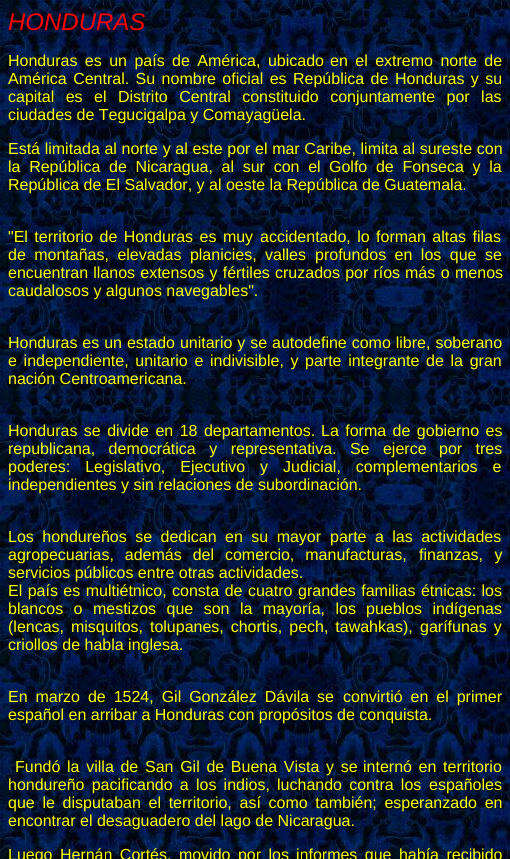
#include <cairo/cairo.h>
#include <math.h>
#include <stddef.h>

static cairo_t *cr;

static void use_color(int r, int g, int b) {
  cairo_set_source_rgb(cr, r / 255.0, g / 255.0, b / 255.0);
}

static void text(double x, double y, const char *s, const char *family, double size, int italic, int bold, int r, int g, int b) {
  cairo_select_font_face(cr, family, italic ? CAIRO_FONT_SLANT_ITALIC : CAIRO_FONT_SLANT_NORMAL,
    bold ? CAIRO_FONT_WEIGHT_BOLD : CAIRO_FONT_WEIGHT_NORMAL);
  cairo_set_font_size(cr, size);
  use_color(r, g, b);
  cairo_move_to(cr, x, y);
  cairo_show_text(cr, s);
}

static void spaced_text(double x, double y, const char *s, double letter, double word) {
  cairo_move_to(cr, x, y);
  while (*s) {
    char ch[5] = {0};
    int n = 0;
    do ch[n++] = *s++; while ((*s & 0xC0) == 0x80);
    cairo_show_text(cr, ch);
    cairo_rel_move_to(cr, letter + word * (*ch == ' '), 0);
  }
}

static void picture(const char *path, double x, double y, double w, double h) {
  cairo_surface_t *image = cairo_image_surface_create_from_png(path);
  cairo_save(cr);
  cairo_set_source_surface(cr, image, x, y);
  cairo_rectangle(cr, x, y, w, h);
  cairo_fill(cr);
  cairo_restore(cr);
  cairo_surface_destroy(image);
}

static void draw(void) {
  use_color(255, 255, 255);
  cairo_paint(cr);
  picture("img_01.png", 0, 0, 510, 859);
  text(8, 30, "HONDURAS", "Liberation Sans", 24, 1, 0, 255, 0, 0);
  cairo_select_font_face(cr, "Liberation Sans", CAIRO_FONT_SLANT_NORMAL, CAIRO_FONT_WEIGHT_NORMAL);
  cairo_set_font_size(cr, 16);
  use_color(255, 255, 0);
  spaced_text(8, 66, "Honduras es un país de América, ubicado", 0, 3);
  spaced_text(330, 66, "en el extremo norte de", 0, 3);
  spaced_text(8, 84, "América Central. Su nombre oficial es República de", 0, 2);
  spaced_text(395, 84, "Honduras y su", 0, 2);
  spaced_text(8, 102, "capital es el Distrito Central constituido conjuntamente por las", 0, 7);
  text(8, 120, "ciudades de Tegucigalpa y Comayagüela.", "Liberation Sans", 16, 0, 0, 255, 255, 0);
  spaced_text(8, 154, "Está limitada al norte y al este por el mar Caribe, limita al sureste con", 0, 0.2);
  spaced_text(8, 172, "la República de Nicaragua, al sur con el", 0, 4.25);
  spaced_text(329, 172, "Golfo de Fonseca y la", 0, 4.25);
  text(8, 190, "República de El Salvador, y al oeste la República de Guatemala.", "Liberation Sans", 16, 0, 0, 255, 255, 0);
  spaced_text(8, 242, "\"El territorio de Honduras es muy", 0, 2);
  spaced_text(260, 242, "accidentado, lo forman altas filas", 0, 2);
  spaced_text(8, 260, "de montañas, elevadas planicies, valles", 0, 4);
  spaced_text(315, 260, "profundos en los que se", 0, 4);
  spaced_text(8, 278, "encuentran llanos extensos y fértiles cruzados por ríos", 0, 0.75);
  spaced_text(405, 278, "más o menos", 0, 1);
  text(8, 296, "caudalosos y algunos navegables\".", "Liberation Sans", 16, 0, 0, 255, 255, 0);
  spaced_text(8, 348, "Honduras es un estado unitario y se", 0, 0.5);
  spaced_text(272, 348, "autodefine como libre, soberano", 0, 0.5);
  spaced_text(8, 366, "e independiente, unitario e indivisible, y", 0, 2.25);
  spaced_text(305, 366, "parte integrante de la gran", 0, 2.25);
  text(8, 384, "nación Centroamericana.", "Liberation Sans", 16, 0, 0, 255, 255, 0);
  spaced_text(8, 436, "Honduras se divide en 18 departamentos.", 0, 2);
  spaced_text(321, 436, "La forma de gobierno es", 0, 2);
  spaced_text(8, 454, "republicana, democrática y representativa. Se ejerce", 0, 9);
  spaced_text(439, 454, "por tres", 0, 9);
  spaced_text(8, 472, "poderes: Legislativo, Ejecutivo y Judicial, complementarios e", 0, 10.5);
  text(8, 490, "independientes y sin relaciones de subordinación.", "Liberation Sans", 16, 0, 0, 255, 255, 0);
  spaced_text(8, 542, "Los hondureños se dedican en su mayor", 0, 4);
  spaced_text(330, 542, "parte a las actividades", 0, 4);
  spaced_text(8, 560, "agropecuarias, además del comercio, manufacturas,", 0, 6.5);
  spaced_text(419, 560, "finanzas, y", 0, 7);
  text(8, 578, "servicios públicos entre otras actividades.", "Liberation Sans", 16, 0, 0, 255, 255, 0);
  spaced_text(8, 596, "El país es multiétnico, consta de cuatro", 0, 1);
  spaced_text(298, 596, "grandes familias étnicas: los", 0, 1);
  spaced_text(8, 614, "blancos o mestizos que son la mayoría, los", 0, 6);
  spaced_text(366, 614, "pueblos indígenas", 0, 6);
  spaced_text(8, 632, "(lencas, misquitos, tolupanes, chortis, pech, tawahkas),", 0, 2.5);
  spaced_text(420, 632, "garífunas y", 0, 2.5);
  text(8, 650, "criollos de habla inglesa.", "Liberation Sans", 16, 0, 0, 255, 255, 0);
  spaced_text(8, 702, "En marzo de 1524, Gil González Dávila se", 0, 3.5);
  spaced_text(343, 702, "convirtió en el primer", 0, 3.5);
  text(8, 720, "español en arribar a Honduras con propósitos de conquista.", "Liberation Sans", 16, 0, 0, 255, 255, 0);
  spaced_text(15, 772, "Fundó la villa de San Gil de Buena Vista y se", 0, 2.25);
  spaced_text(363, 772, "internó en territorio", 0, 2.25);
  spaced_text(8, 790, "hondureño pacificando a los indios, luchando contra los", 0, 2.75);
  text(429, 790, "españoles", "Liberation Sans", 16, 0, 0, 255, 255, 0);
  spaced_text(8, 808, "que le disputaban el territorio, así como también; esperanzado en", 0, 3.25);
  text(8, 826, "encontrar el desaguadero del lago de Nicaragua.", "Liberation Sans", 16, 0, 0, 255, 255, 0);
  spaced_text(8, 860, "Luego Hernán Cortés, movido por los", 0, 3);
  spaced_text(296, 860, "informes que había recibido", 0, 3);
}

int main(void) {
  cairo_surface_t *surface = cairo_image_surface_create(CAIRO_FORMAT_RGB24, 510, 859);
  cr = cairo_create(surface);
  cairo_font_options_t *options = cairo_font_options_create();
  cairo_font_options_set_hint_metrics(options, CAIRO_HINT_METRICS_OFF);
  cairo_font_options_set_hint_style(options, CAIRO_HINT_STYLE_NONE);
  cairo_set_font_options(cr, options);
  cairo_set_miter_limit(cr, 4);
  draw();
  cairo_surface_write_to_png(surface, "out.png");
  cairo_font_options_destroy(options);
  cairo_destroy(cr);
  cairo_surface_destroy(surface);
  return 0;
}
